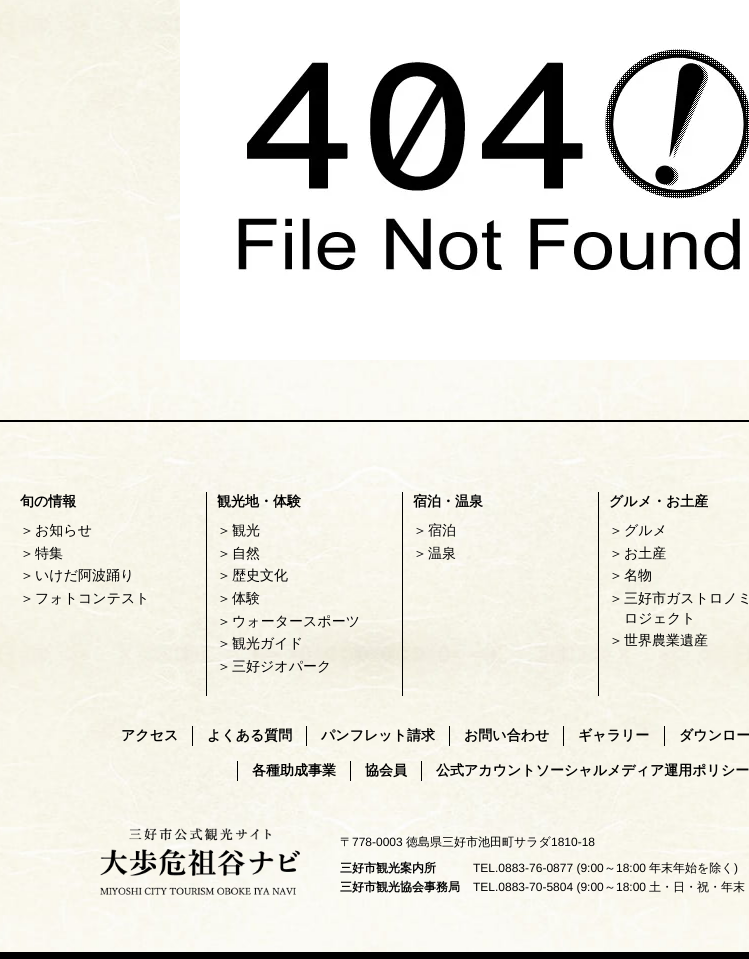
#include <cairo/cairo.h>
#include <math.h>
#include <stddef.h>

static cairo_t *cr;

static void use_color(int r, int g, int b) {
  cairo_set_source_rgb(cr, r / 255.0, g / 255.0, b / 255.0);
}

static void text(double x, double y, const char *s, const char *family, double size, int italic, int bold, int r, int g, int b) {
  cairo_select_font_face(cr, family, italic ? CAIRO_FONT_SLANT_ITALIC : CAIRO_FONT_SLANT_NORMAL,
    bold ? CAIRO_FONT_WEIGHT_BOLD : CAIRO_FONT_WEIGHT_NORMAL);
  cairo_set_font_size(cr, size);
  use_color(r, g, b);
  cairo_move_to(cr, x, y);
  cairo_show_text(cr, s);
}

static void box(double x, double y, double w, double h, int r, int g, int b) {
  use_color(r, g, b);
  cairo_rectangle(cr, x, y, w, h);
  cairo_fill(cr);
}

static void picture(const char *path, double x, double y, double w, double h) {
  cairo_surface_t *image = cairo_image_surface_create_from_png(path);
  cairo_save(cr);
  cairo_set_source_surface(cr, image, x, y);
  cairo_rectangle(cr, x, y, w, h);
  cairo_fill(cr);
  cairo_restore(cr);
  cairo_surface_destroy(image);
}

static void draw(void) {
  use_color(255, 255, 255);
  cairo_paint(cr);
  picture("img_01.png", 0, 0, 749, 952);
  picture("img_02.png", 180, 0, 569, 360);
  box(0, 420, 749, 2, 0, 0, 0);
  box(206, 492, 1, 204, 0, 0, 0);
  box(402, 492, 1, 204, 0, 0, 0);
  box(598, 492, 1, 204, 0, 0, 0);
  box(192, 726, 1, 20, 0, 0, 0);
  box(306, 726, 1, 20, 0, 0, 0);
  box(449, 726, 1, 20, 0, 0, 0);
  box(563, 726, 1, 20, 0, 0, 0);
  box(664, 726, 1, 20, 0, 0, 0);
  box(237, 761, 1, 20, 0, 0, 0);
  box(350, 761, 1, 20, 0, 0, 0);
  box(421, 761, 1, 20, 0, 0, 0);
  picture("img_03.png", 100, 828, 200, 67);
  box(0, 952, 749, 7, 0, 0, 0);
  text(20, 506, "旬の情報", "WenQuanYi Zen Hei", 14, 0, 1, 0, 0, 0);
  text(20, 535, "＞", "WenQuanYi Zen Hei Medium", 14, 0, 0, 0, 0, 0);
  text(35, 535, "お知らせ", "WenQuanYi Zen Hei Medium", 14, 0, 0, 0, 0, 0);
  text(20, 558, "＞", "WenQuanYi Zen Hei Medium", 14, 0, 0, 0, 0, 0);
  text(35, 558, "特集", "WenQuanYi Zen Hei Medium", 14, 0, 0, 0, 0, 0);
  text(20, 580, "＞", "WenQuanYi Zen Hei Medium", 14, 0, 0, 0, 0, 0);
  text(35, 580, "いけだ阿波踊り", "WenQuanYi Zen Hei Medium", 14, 0, 0, 0, 0, 0);
  text(20, 603, "＞", "WenQuanYi Zen Hei Medium", 14, 0, 0, 0, 0, 0);
  text(35, 603, "フォトコンテスト", "WenQuanYi Zen Hei Medium", 14, 0, 0, 0, 0, 0);
  text(217, 506, "観光地・体験", "WenQuanYi Zen Hei", 14, 0, 1, 0, 0, 0);
  text(217, 535, "＞", "WenQuanYi Zen Hei Medium", 14, 0, 0, 0, 0, 0);
  text(232, 535, "観光", "WenQuanYi Zen Hei Medium", 14, 0, 0, 0, 0, 0);
  text(217, 558, "＞", "WenQuanYi Zen Hei Medium", 14, 0, 0, 0, 0, 0);
  text(232, 558, "自然", "WenQuanYi Zen Hei Medium", 14, 0, 0, 0, 0, 0);
  text(217, 580, "＞", "WenQuanYi Zen Hei Medium", 14, 0, 0, 0, 0, 0);
  text(232, 580, "歴史文化", "WenQuanYi Zen Hei Medium", 14, 0, 0, 0, 0, 0);
  text(217, 603, "＞", "WenQuanYi Zen Hei Medium", 14, 0, 0, 0, 0, 0);
  text(232, 603, "体験", "WenQuanYi Zen Hei Medium", 14, 0, 0, 0, 0, 0);
  text(217, 626, "＞", "WenQuanYi Zen Hei Medium", 14, 0, 0, 0, 0, 0);
  text(232, 626, "ウォータースポーツ", "WenQuanYi Zen Hei Medium", 14, 0, 0, 0, 0, 0);
  text(217, 648, "＞", "WenQuanYi Zen Hei Medium", 14, 0, 0, 0, 0, 0);
  text(232, 648, "観光ガイド", "WenQuanYi Zen Hei Medium", 14, 0, 0, 0, 0, 0);
  text(217, 671, "＞", "WenQuanYi Zen Hei Medium", 14, 0, 0, 0, 0, 0);
  text(232, 671, "三好ジオパーク", "WenQuanYi Zen Hei Medium", 14, 0, 0, 0, 0, 0);
  text(413, 506, "宿泊・温泉", "WenQuanYi Zen Hei", 14, 0, 1, 0, 0, 0);
  text(413, 535, "＞", "WenQuanYi Zen Hei Medium", 14, 0, 0, 0, 0, 0);
  text(428, 535, "宿泊", "WenQuanYi Zen Hei Medium", 14, 0, 0, 0, 0, 0);
  text(413, 558, "＞", "WenQuanYi Zen Hei Medium", 14, 0, 0, 0, 0, 0);
  text(428, 558, "温泉", "WenQuanYi Zen Hei Medium", 14, 0, 0, 0, 0, 0);
  text(609, 506, "グルメ・お土産", "WenQuanYi Zen Hei", 14, 0, 1, 0, 0, 0);
  text(609, 535, "＞", "WenQuanYi Zen Hei Medium", 14, 0, 0, 0, 0, 0);
  text(624, 535, "グルメ", "WenQuanYi Zen Hei Medium", 14, 0, 0, 0, 0, 0);
  text(609, 558, "＞", "WenQuanYi Zen Hei Medium", 14, 0, 0, 0, 0, 0);
  text(624, 558, "お土産", "WenQuanYi Zen Hei Medium", 14, 0, 0, 0, 0, 0);
  text(609, 580, "＞", "WenQuanYi Zen Hei Medium", 14, 0, 0, 0, 0, 0);
  text(624, 580, "名物", "WenQuanYi Zen Hei Medium", 14, 0, 0, 0, 0, 0);
  text(609, 603, "＞", "WenQuanYi Zen Hei Medium", 14, 0, 0, 0, 0, 0);
  text(624, 603, "三好市ガストロノミ", "WenQuanYi Zen Hei Medium", 14, 0, 0, 0, 0, 0);
  text(624, 623, "ロジェクト", "WenQuanYi Zen Hei Medium", 14, 0, 0, 0, 0, 0);
  text(609, 645, "＞", "WenQuanYi Zen Hei Medium", 14, 0, 0, 0, 0, 0);
  text(624, 645, "世界農業遺産", "WenQuanYi Zen Hei Medium", 14, 0, 0, 0, 0, 0);
  text(121, 740, "アクセス", "WenQuanYi Zen Hei", 14, 0, 1, 0, 0, 0);
  text(207, 740, "よくある質問", "WenQuanYi Zen Hei", 14, 0, 1, 0, 0, 0);
  text(321, 740, "パンフレット請求", "WenQuanYi Zen Hei", 14, 0, 1, 0, 0, 0);
  text(464, 740, "お問い合わせ", "WenQuanYi Zen Hei", 14, 0, 1, 0, 0, 0);
  text(578, 740, "ギャラリー", "WenQuanYi Zen Hei", 14, 0, 1, 0, 0, 0);
  text(679, 740, "ダウンロー", "WenQuanYi Zen Hei", 14, 0, 1, 0, 0, 0);
  text(252, 775, "各種助成事業", "WenQuanYi Zen Hei", 14, 0, 1, 0, 0, 0);
  text(365, 775, "協会員", "WenQuanYi Zen Hei", 14, 0, 1, 0, 0, 0);
  text(436, 775, "公式アカウントソーシャルメディア運用ポリシー", "WenQuanYi Zen Hei", 14, 0, 1, 0, 0, 0);
  text(340, 846, "〒", "WenQuanYi Zen Hei Medium", 12, 0, 0, 0, 0, 0);
  text(352, 846, "778-0003", "Liberation Sans", 12, 0, 0, 0, 0, 0);
  text(406, 846, "徳島県三好市池田町サラダ", "WenQuanYi Zen Hei Medium", 12, 0, 0, 0, 0, 0);
  text(551, 846, "1810-18", "Liberation Sans", 12, 0, 0, 0, 0, 0);
  text(340, 872, "三好市観光案内所", "WenQuanYi Zen Hei", 12, 0, 1, 0, 0, 0);
  text(473, 872, "TEL.0883-76-0877 (9:00", "Liberation Sans", 12, 0, 0, 0, 0, 0);
  text(604, 872, "～", "WenQuanYi Zen Hei Medium", 12, 0, 0, 0, 0, 0);
  text(616, 872, "18:00", "Liberation Sans", 12, 0, 0, 0, 0, 0);
  text(649, 872, "年末年始を除く", "WenQuanYi Zen Hei Medium", 12, 0, 0, 0, 0, 0);
  text(734, 872, ")", "Liberation Sans", 12, 0, 0, 0, 0, 0);
  text(340, 891, "三好市観光協会事務局", "WenQuanYi Zen Hei", 12, 0, 1, 0, 0, 0);
  text(473, 891, "TEL.0883-70-5804 (9:00", "Liberation Sans", 12, 0, 0, 0, 0, 0);
  text(604, 891, "～", "WenQuanYi Zen Hei Medium", 12, 0, 0, 0, 0, 0);
  text(616, 891, "18:00", "Liberation Sans", 12, 0, 0, 0, 0, 0);
  text(649, 891, "土・日・祝・年末", "WenQuanYi Zen Hei Medium", 12, 0, 0, 0, 0, 0);
}

int main(void) {
  cairo_surface_t *surface = cairo_image_surface_create(CAIRO_FORMAT_RGB24, 749, 959);
  cr = cairo_create(surface);
  cairo_font_options_t *options = cairo_font_options_create();
  cairo_font_options_set_hint_metrics(options, CAIRO_HINT_METRICS_OFF);
  cairo_font_options_set_hint_style(options, CAIRO_HINT_STYLE_NONE);
  cairo_set_font_options(cr, options);
  cairo_set_miter_limit(cr, 4);
  draw();
  cairo_surface_write_to_png(surface, "out.png");
  cairo_font_options_destroy(options);
  cairo_destroy(cr);
  cairo_surface_destroy(surface);
  return 0;
}
